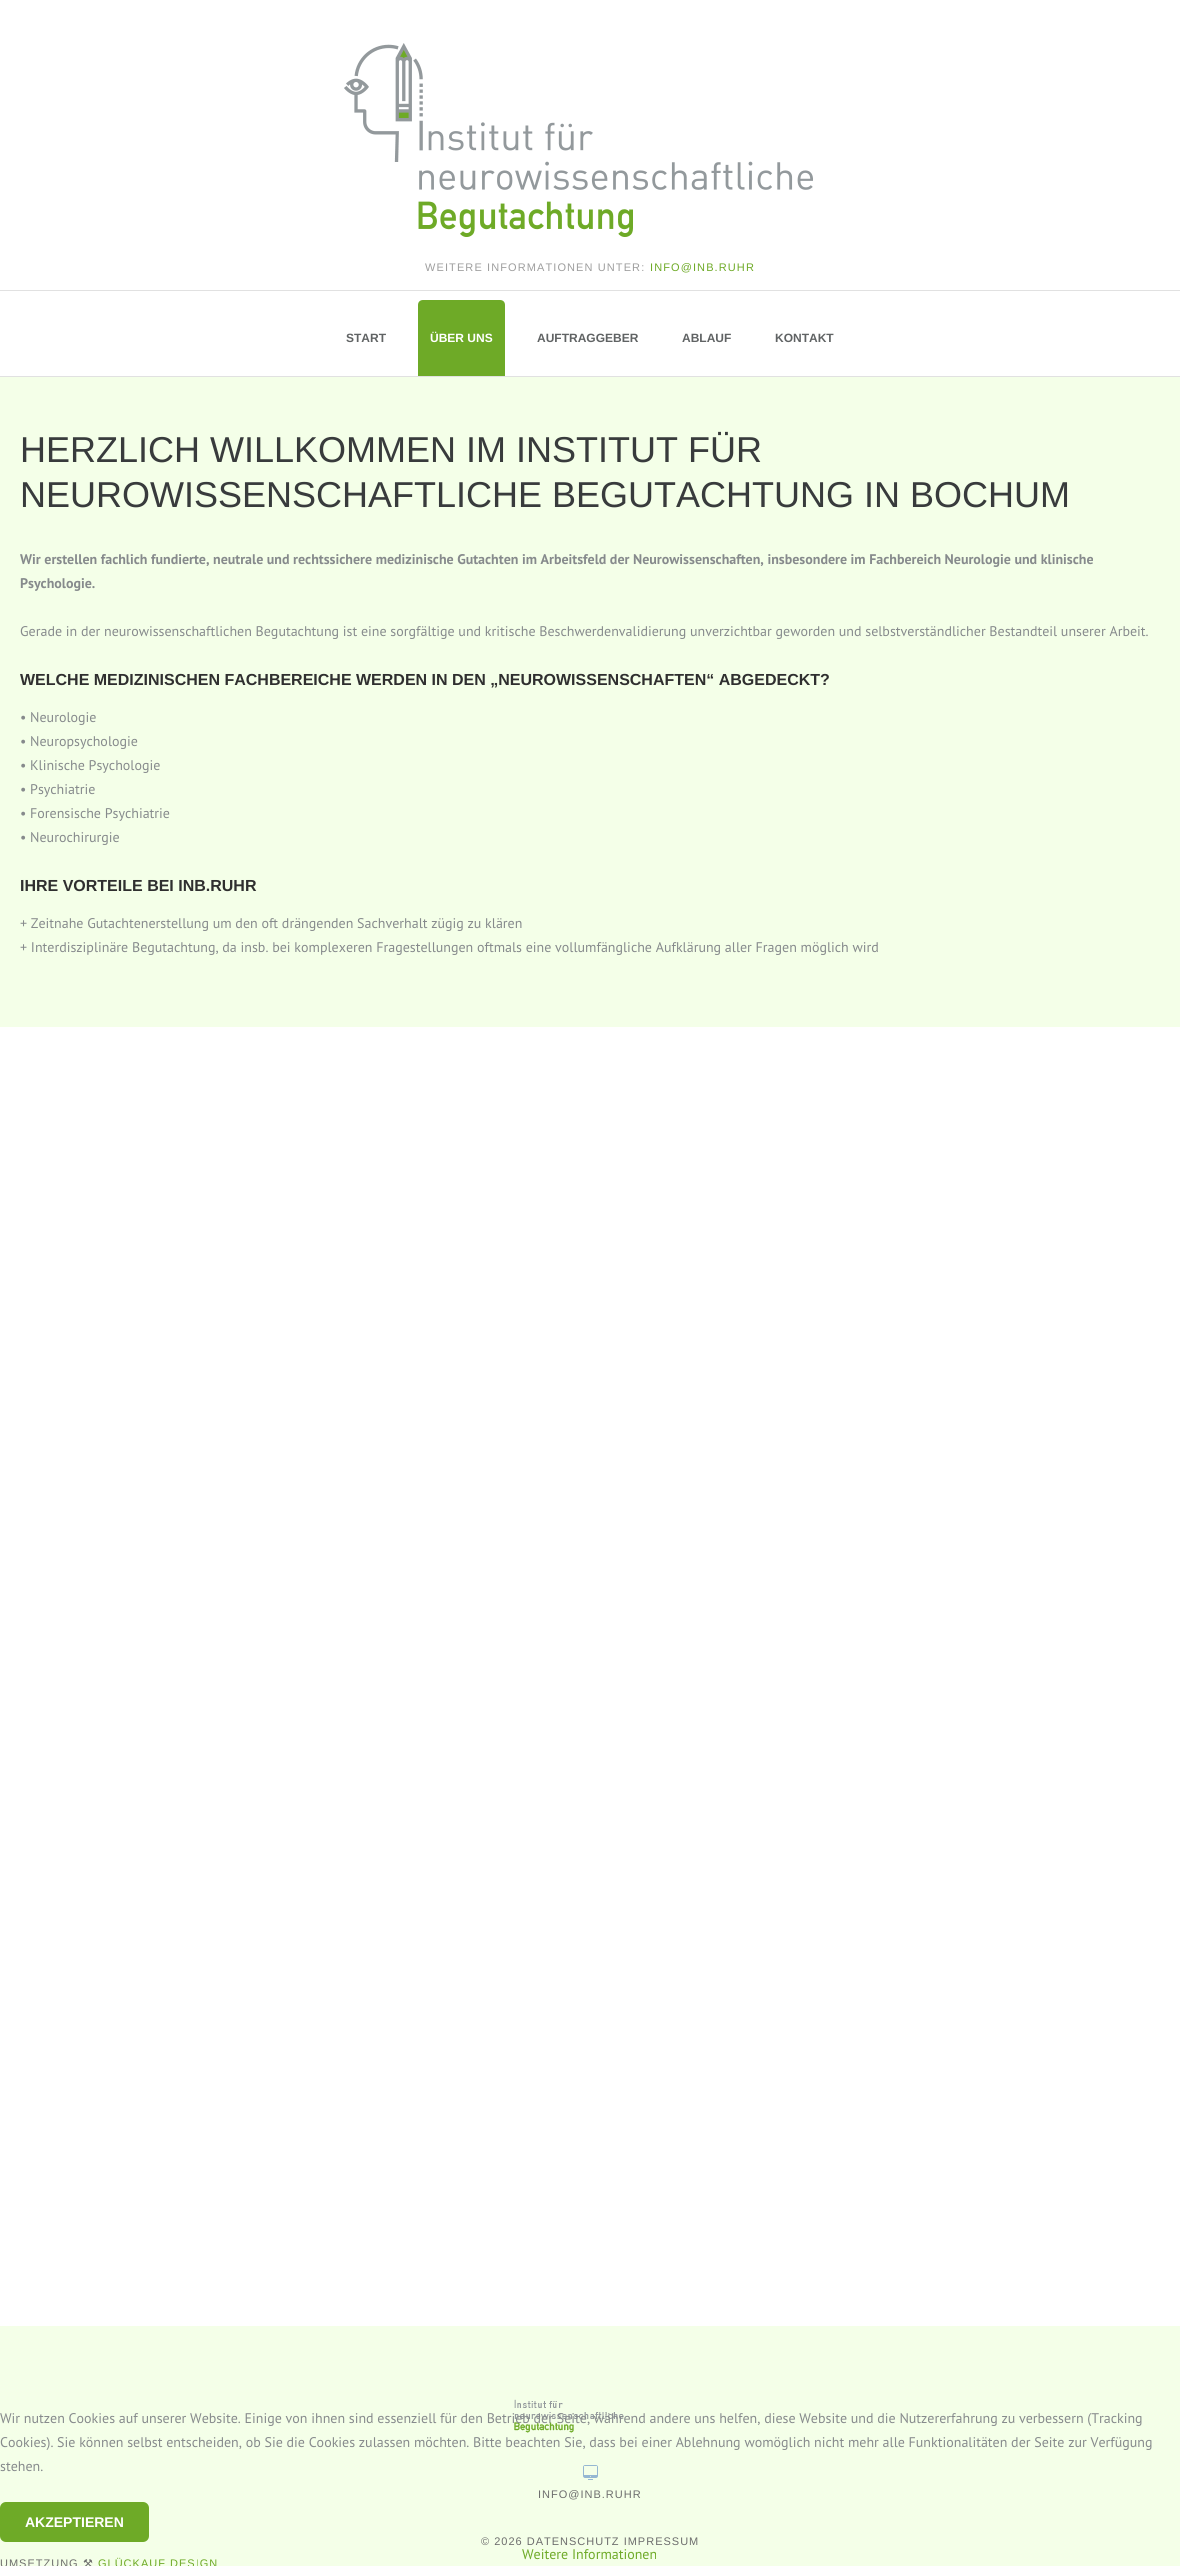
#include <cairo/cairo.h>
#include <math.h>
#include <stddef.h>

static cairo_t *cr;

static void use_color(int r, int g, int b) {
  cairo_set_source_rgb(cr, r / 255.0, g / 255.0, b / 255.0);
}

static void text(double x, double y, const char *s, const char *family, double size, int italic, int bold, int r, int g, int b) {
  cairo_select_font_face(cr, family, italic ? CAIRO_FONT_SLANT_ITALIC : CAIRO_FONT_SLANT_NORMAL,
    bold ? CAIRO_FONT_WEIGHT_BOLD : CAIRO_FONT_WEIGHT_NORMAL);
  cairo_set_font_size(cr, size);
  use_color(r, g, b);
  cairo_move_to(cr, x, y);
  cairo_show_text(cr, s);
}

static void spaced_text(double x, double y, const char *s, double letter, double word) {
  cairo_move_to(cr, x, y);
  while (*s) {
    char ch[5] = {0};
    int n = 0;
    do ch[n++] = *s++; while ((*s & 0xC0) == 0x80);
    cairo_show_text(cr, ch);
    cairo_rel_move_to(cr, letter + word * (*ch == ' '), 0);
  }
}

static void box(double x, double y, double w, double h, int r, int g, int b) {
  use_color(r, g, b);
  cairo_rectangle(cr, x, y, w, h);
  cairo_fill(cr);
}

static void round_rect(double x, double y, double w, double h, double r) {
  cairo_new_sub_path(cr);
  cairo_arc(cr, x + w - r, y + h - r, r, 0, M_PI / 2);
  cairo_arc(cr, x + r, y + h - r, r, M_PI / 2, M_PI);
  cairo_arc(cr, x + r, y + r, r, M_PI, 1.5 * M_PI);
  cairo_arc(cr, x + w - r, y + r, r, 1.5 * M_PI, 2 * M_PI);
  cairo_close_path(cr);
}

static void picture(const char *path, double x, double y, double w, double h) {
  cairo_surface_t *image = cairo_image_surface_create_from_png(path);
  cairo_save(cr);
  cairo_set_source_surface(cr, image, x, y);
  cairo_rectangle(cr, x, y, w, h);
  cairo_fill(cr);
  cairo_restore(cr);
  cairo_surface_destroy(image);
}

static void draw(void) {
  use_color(255, 255, 255);
  cairo_paint(cr);
  picture("img_01.png", 344, 43, 469, 194);
  box(0, 290, 1180, 1, 225, 225, 225);
  box(0, 376, 1180, 1, 225, 225, 225);
  use_color(110, 170, 39);
  cairo_new_path(cr);
  cairo_move_to(cr, 423, 300);
  cairo_line_to(cr, 500, 300);
  cairo_curve_to(cr, 503, 300, 505, 302, 505, 305);
  cairo_line_to(cr, 505, 376);
  cairo_line_to(cr, 418, 376);
  cairo_line_to(cr, 418, 305);
  cairo_curve_to(cr, 418, 302, 420, 300, 423, 300);
  cairo_close_path(cr);
  cairo_fill(cr);
  box(0, 377, 1180, 650, 244, 255, 232);
  box(0, 2326, 1180, 240, 244, 255, 232);
  use_color(110, 170, 39);
  round_rect(0, 2502, 149, 40, 6);
  cairo_fill(cr);
  picture("img_02.png", 514, 2399, 110, 34);
  picture("img_03.png", 583, 2465, 15, 15);
  cairo_select_font_face(cr, "Liberation Sans", CAIRO_FONT_SLANT_NORMAL, CAIRO_FONT_WEIGHT_NORMAL);
  cairo_set_font_size(cr, 11);
  use_color(158, 158, 158);
  spaced_text(425, 271, "WEITERE INFORMATIONEN UNTER:", 1.1, 0);
  use_color(110, 170, 39);
  spaced_text(650, 271, "INFO@INB.RUHR", 1.1, 0);
  text(346, 342, "START", "Liberation Sans", 12, 0, 1, 96, 99, 100);
  text(430, 342, "ÜBER UNS", "Liberation Sans", 12, 0, 1, 255, 255, 255);
  text(537, 342, "AUFTRAGGEBER", "Liberation Sans", 12, 0, 1, 96, 99, 100);
  text(682, 342, "ABLAUF", "Liberation Sans", 12, 0, 1, 96, 99, 100);
  text(775, 342, "KONTAKT", "Liberation Sans", 12, 0, 1, 96, 99, 100);
  text(20, 462, "HERZLICH WILLKOMMEN IM INSTITUT FÜR", "Liberation Sans", 36, 0, 0, 56, 59, 60);
  text(20, 507, "NEUROWISSENSCHAFTLICHE BEGUTACHTUNG IN BOCHUM", "Liberation Sans", 36, 0, 0, 56, 59, 60);
  text(20, 564, "Wir erstellen fachlich fundierte, neutrale und rechtssichere medizinische Gutachten im Arbeitsfeld der Neurowissenschaften, insbesondere im Fachbereich Neurologie und klinische", "PT Sans", 14, 0, 1, 134, 138, 140);
  text(20, 588, "Psychologie.", "PT Sans", 14, 0, 1, 134, 138, 140);
  text(20, 636, "Gerade in der neurowissenschaftlichen Begutachtung ist eine sorgfältige und kritische Beschwerdenvalidierung unverzichtbar geworden und selbstverständlicher Bestandteil unserer Arbeit.", "PT Sans", 14, 0, 0, 134, 138, 140);
  text(20, 685, "WELCHE MEDIZINISCHEN FACHBEREICHE WERDEN IN DEN „NEUROWISSENSCHAFTEN“ ABGEDECKT?", "Liberation Sans", 16, 0, 1, 47, 47, 47);
  text(20, 722, "• Neurologie", "PT Sans", 14, 0, 0, 134, 138, 140);
  text(20, 746, "• Neuropsychologie", "PT Sans", 14, 0, 0, 134, 138, 140);
  text(20, 770, "• Klinische Psychologie", "PT Sans", 14, 0, 0, 134, 138, 140);
  text(20, 794, "• Psychiatrie", "PT Sans", 14, 0, 0, 134, 138, 140);
  text(20, 818, "• Forensische Psychiatrie", "PT Sans", 14, 0, 0, 134, 138, 140);
  text(20, 842, "• Neurochirurgie", "PT Sans", 14, 0, 0, 134, 138, 140);
  text(20, 891, "IHRE VORTEILE BEI INB.RUHR", "Liberation Sans", 16, 0, 1, 47, 47, 47);
  text(20, 928, "+ Zeitnahe Gutachtenerstellung um den oft drängenden Sachverhalt zügig zu klären", "PT Sans", 14, 0, 0, 134, 138, 140);
  text(20, 952, "+ Interdisziplinäre Begutachtung, da insb. bei komplexeren Fragestellungen oftmals eine vollumfängliche Aufklärung aller Fragen möglich wird", "PT Sans", 14, 0, 0, 134, 138, 140);
  text(0, 2423, "Wir nutzen Cookies auf unserer Website. Einige von ihnen sind essenziell für den Betrieb der Seite, während andere uns helfen, diese Website und die Nutzererfahrung zu verbessern (Tracking", "PT Sans", 14, 0, 0, 134, 138, 140);
  text(0, 2447, "Cookies). Sie können selbst entscheiden, ob Sie die Cookies zulassen möchten. Bitte beachten Sie, dass bei einer Ablehnung womöglich nicht mehr alle Funktionalitäten der Seite zur Verfügung", "PT Sans", 14, 0, 0, 134, 138, 140);
  text(0, 2471, "stehen.", "PT Sans", 14, 0, 0, 134, 138, 140);
  text(25, 2527, "AKZEPTIEREN", "Liberation Sans", 14, 0, 1, 255, 255, 255);
  text(522, 2559, "Weitere Informationen", "PT Sans", 14, 0, 0, 110, 170, 39);
  cairo_select_font_face(cr, "Liberation Sans", CAIRO_FONT_SLANT_NORMAL, CAIRO_FONT_WEIGHT_NORMAL);
  cairo_set_font_size(cr, 11);
  use_color(109, 109, 109);
  spaced_text(538, 2498, "INFO@INB.RUHR", 1, 0);
  spaced_text(481, 2545, "© 2026 DATENSCHUTZ IMPRESSUM", 1, 0);
  spaced_text(0, 2567, "UMSETZUNG", 1, 0);
  cairo_select_font_face(cr, "DejaVu Sans", CAIRO_FONT_SLANT_NORMAL, CAIRO_FONT_WEIGHT_NORMAL);
  spaced_text(83, 2567, "⚒", 1, 0);
  cairo_select_font_face(cr, "Liberation Sans", CAIRO_FONT_SLANT_NORMAL, CAIRO_FONT_WEIGHT_NORMAL);
  use_color(110, 170, 39);
  spaced_text(98, 2567, "GLÜCKAUF DESIGN", 1, 0);
}

int main(void) {
  cairo_surface_t *surface = cairo_image_surface_create(CAIRO_FORMAT_RGB24, 1180, 2566);
  cr = cairo_create(surface);
  cairo_font_options_t *options = cairo_font_options_create();
  cairo_font_options_set_hint_metrics(options, CAIRO_HINT_METRICS_OFF);
  cairo_font_options_set_hint_style(options, CAIRO_HINT_STYLE_NONE);
  cairo_set_font_options(cr, options);
  cairo_set_miter_limit(cr, 4);
  draw();
  cairo_surface_write_to_png(surface, "out.png");
  cairo_font_options_destroy(options);
  cairo_destroy(cr);
  cairo_surface_destroy(surface);
  return 0;
}
